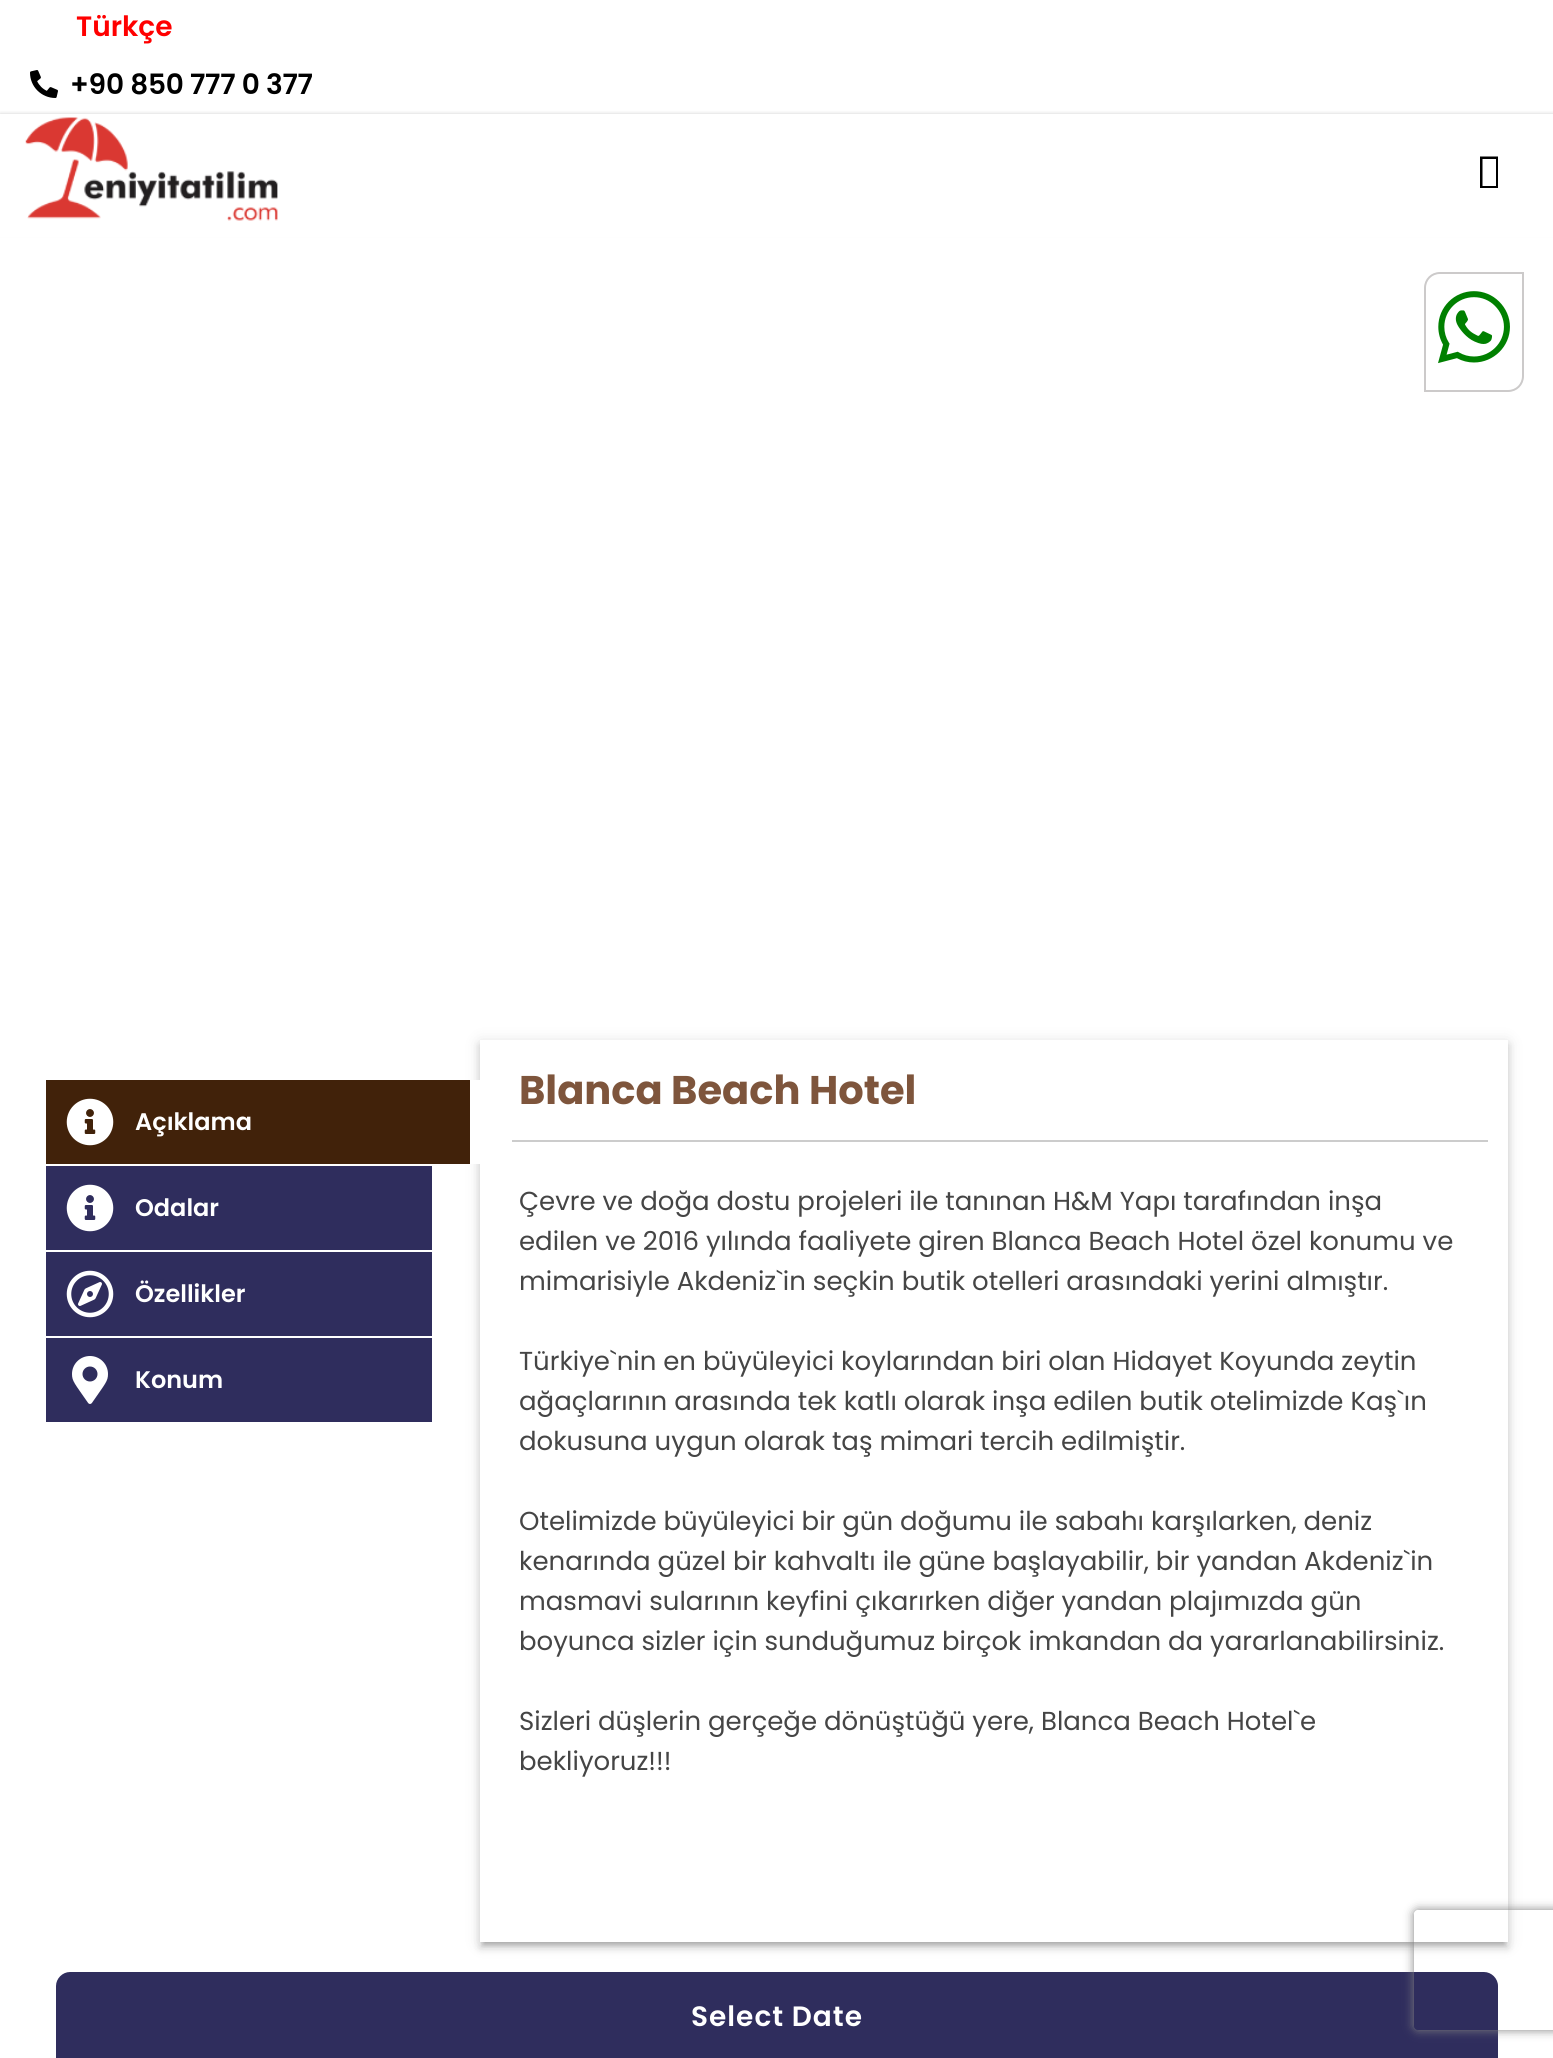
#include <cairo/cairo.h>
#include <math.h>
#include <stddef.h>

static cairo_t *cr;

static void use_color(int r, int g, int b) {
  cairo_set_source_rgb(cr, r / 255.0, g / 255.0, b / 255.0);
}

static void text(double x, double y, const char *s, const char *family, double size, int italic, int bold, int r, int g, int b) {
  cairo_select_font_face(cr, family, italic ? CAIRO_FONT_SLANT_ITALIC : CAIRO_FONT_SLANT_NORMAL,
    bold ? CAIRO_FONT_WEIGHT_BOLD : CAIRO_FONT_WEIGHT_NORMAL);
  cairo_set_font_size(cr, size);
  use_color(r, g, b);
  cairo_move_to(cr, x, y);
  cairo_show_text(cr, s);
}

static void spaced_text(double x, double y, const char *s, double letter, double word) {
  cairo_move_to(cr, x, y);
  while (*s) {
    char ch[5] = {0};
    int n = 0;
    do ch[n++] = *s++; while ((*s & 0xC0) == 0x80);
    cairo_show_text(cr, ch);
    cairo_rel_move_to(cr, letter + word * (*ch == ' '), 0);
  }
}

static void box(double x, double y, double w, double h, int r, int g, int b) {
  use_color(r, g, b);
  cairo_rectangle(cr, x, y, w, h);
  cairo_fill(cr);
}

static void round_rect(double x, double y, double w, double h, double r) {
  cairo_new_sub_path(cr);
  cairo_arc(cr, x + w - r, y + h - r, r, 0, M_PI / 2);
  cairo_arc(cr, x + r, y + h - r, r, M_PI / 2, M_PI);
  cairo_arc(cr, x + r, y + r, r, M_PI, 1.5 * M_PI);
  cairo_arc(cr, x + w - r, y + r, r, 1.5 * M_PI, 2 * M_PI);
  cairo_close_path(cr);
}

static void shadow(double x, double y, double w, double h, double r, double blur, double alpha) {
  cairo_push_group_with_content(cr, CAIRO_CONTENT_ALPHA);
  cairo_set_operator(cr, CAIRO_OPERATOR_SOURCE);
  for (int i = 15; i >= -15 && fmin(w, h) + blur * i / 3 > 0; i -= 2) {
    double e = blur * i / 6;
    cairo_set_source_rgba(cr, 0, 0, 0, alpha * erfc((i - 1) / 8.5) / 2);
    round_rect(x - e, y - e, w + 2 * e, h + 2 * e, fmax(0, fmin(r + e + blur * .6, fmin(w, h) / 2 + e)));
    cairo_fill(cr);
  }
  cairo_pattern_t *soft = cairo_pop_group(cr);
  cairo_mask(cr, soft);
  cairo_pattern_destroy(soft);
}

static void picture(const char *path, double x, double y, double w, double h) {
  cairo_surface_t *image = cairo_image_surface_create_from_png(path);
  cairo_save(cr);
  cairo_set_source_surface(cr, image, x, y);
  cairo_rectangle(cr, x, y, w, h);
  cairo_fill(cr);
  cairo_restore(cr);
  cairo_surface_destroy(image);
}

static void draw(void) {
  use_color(255, 255, 255);
  cairo_paint(cr);
  picture("img_01.png", 30, 70, 28, 28);
  use_color(0, 0, 0);
  shadow(0, 114, 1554, 120, 0, 2, 0.2);
  box(0, 114, 1553, 123, 255, 255, 255);
  picture("img_02.png", 25, 117, 253, 104);
  use_color(0, 0, 0);
  cairo_new_path(cr);
  cairo_move_to(cr, 1480, 188);
  cairo_line_to(cr, 1480, 156.5);
  cairo_line_to(cr, 1498, 156.5);
  cairo_line_to(cr, 1498, 188);
  cairo_close_path(cr);
  cairo_move_to(cr, 1482.5, 186);
  cairo_line_to(cr, 1496, 186);
  cairo_line_to(cr, 1496, 159);
  cairo_line_to(cr, 1482.5, 159);
  cairo_close_path(cr);
  cairo_fill(cr);
  cairo_new_path(cr);
  cairo_move_to(cr, 1440, 273);
  cairo_line_to(cr, 1523, 273);
  cairo_line_to(cr, 1523, 376);
  cairo_curve_to(cr, 1523, 384.5, 1516.5, 391, 1508, 391);
  cairo_line_to(cr, 1425, 391);
  cairo_line_to(cr, 1425, 288);
  cairo_curve_to(cr, 1425, 279.5, 1431.5, 273, 1440, 273);
  cairo_close_path(cr);
  use_color(204, 202, 202);
  cairo_stroke(cr);
  picture("img_03.png", 1438, 291, 72, 73);
  cairo_save(cr);
  cairo_set_fill_rule(cr, CAIRO_FILL_RULE_EVEN_ODD);
  cairo_new_path(cr);
  cairo_move_to(cr, 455, 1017);
  cairo_line_to(cr, 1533, 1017);
  cairo_line_to(cr, 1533, 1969);
  cairo_line_to(cr, 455, 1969);
  cairo_close_path(cr);
  cairo_move_to(cr, 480, 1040);
  cairo_line_to(cr, 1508, 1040);
  cairo_line_to(cr, 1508, 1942);
  cairo_line_to(cr, 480, 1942);
  cairo_close_path(cr);
  cairo_clip(cr);
  use_color(0, 0, 0);
  shadow(480, 1042, 1028, 902, 0, 8, 0.12);
  cairo_restore(cr);
  cairo_save(cr);
  cairo_set_fill_rule(cr, CAIRO_FILL_RULE_EVEN_ODD);
  cairo_new_path(cr);
  cairo_move_to(cr, 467, 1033);
  cairo_line_to(cr, 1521, 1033);
  cairo_line_to(cr, 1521, 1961);
  cairo_line_to(cr, 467, 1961);
  cairo_close_path(cr);
  cairo_move_to(cr, 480, 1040);
  cairo_line_to(cr, 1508, 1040);
  cairo_line_to(cr, 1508, 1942);
  cairo_line_to(cr, 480, 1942);
  cairo_close_path(cr);
  cairo_clip(cr);
  use_color(0, 0, 0);
  shadow(480, 1046, 1028, 902, 0, 4, 0.14);
  cairo_restore(cr);
  box(46, 1080, 424, 84, 65, 34, 10);
  picture("img_04.png", 66, 1098, 48, 48);
  cairo_save(cr);
  cairo_rectangle(cr, 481, 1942, 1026, 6);
  cairo_clip(cr);
  use_color(0, 0, 0);
  shadow(484, 1050, 1020, 894, 0, 3, 0.2);
  cairo_restore(cr);
  box(470, 1080, 10, 84, 255, 255, 255);
  box(46, 1166, 386, 84, 47, 45, 93);
  picture("img_05.png", 66, 1184, 48, 48);
  box(46, 1252, 386, 84, 47, 45, 93);
  picture("img_06.png", 66, 1270, 48, 48);
  box(46, 1338, 386, 84, 47, 45, 93);
  picture("img_07.png", 72, 1356, 36, 48);
  box(512, 1140, 976, 2, 204, 204, 204);
  use_color(47, 45, 93);
  cairo_new_path(cr);
  cairo_move_to(cr, 70, 1972);
  cairo_line_to(cr, 1484, 1972);
  cairo_curve_to(cr, 1491.5, 1972, 1498, 1978.5, 1498, 1986);
  cairo_line_to(cr, 1498, 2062);
  cairo_line_to(cr, 56, 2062);
  cairo_line_to(cr, 56, 1986);
  cairo_curve_to(cr, 56, 1978.5, 62.5, 1972, 70, 1972);
  cairo_close_path(cr);
  cairo_fill(cr);
  cairo_save(cr);
  cairo_set_fill_rule(cr, CAIRO_FILL_RULE_EVEN_ODD);
  cairo_new_path(cr);
  cairo_move_to(cr, 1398, 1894);
  cairo_line_to(cr, 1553, 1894);
  cairo_line_to(cr, 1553, 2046);
  cairo_line_to(cr, 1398, 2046);
  cairo_close_path(cr);
  cairo_move_to(cr, 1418, 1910);
  cairo_line_to(cr, 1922, 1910);
  cairo_curve_to(cr, 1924, 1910, 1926, 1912, 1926, 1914);
  cairo_line_to(cr, 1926, 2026);
  cairo_curve_to(cr, 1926, 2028, 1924, 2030, 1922, 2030);
  cairo_line_to(cr, 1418, 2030);
  cairo_curve_to(cr, 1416, 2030, 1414, 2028, 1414, 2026);
  cairo_line_to(cr, 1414, 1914);
  cairo_curve_to(cr, 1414, 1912, 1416, 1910, 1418, 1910);
  cairo_close_path(cr);
  cairo_clip(cr);
  use_color(128, 128, 128);
  shadow(1414, 1910, 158, 120, 4, 5, 1);
  cairo_restore(cr);
  text(76, 36, "Türkçe", "Poppins SemiBold", 28, 0, 0, 255, 0, 0);
  use_color(0, 0, 0);
  spaced_text(70, 94, "+90 850 777 0 377", -0.25, 0);
  text(135, 1130, "Açıklama", "Poppins SemiBold", 24, 0, 0, 255, 255, 255);
  text(135, 1216, "Odalar", "Poppins SemiBold", 24, 0, 0, 255, 255, 255);
  text(135, 1302, "Özellikler", "Poppins SemiBold", 24, 0, 0, 255, 255, 255);
  text(135, 1388, "Konum", "Poppins SemiBold", 24, 0, 0, 255, 255, 255);
  text(519, 1104, "Blanca Beach Hotel", "Poppins", 40, 0, 1, 126, 85, 60);
  text(519, 1210, "Çevre ve doğa dostu projeleri ile tanınan H&M Yapı tarafından inşa", "Poppins", 26, 0, 0, 69, 69, 69);
  text(519, 1250, "edilen ve 2016 yılında faaliyete giren Blanca Beach Hotel özel konumu ve", "Poppins", 26, 0, 0, 69, 69, 69);
  text(519, 1290, "mimarisiyle Akdeniz`in seçkin butik otelleri arasındaki yerini almıştır.", "Poppins", 26, 0, 0, 69, 69, 69);
  text(519, 1370, "Türkiye`nin en büyüleyici koylarından biri olan Hidayet Koyunda zeytin", "Poppins", 26, 0, 0, 69, 69, 69);
  text(519, 1410, "ağaçlarının arasında tek katlı olarak inşa edilen butik otelimizde Kaş`ın", "Poppins", 26, 0, 0, 69, 69, 69);
  text(519, 1450, "dokusuna uygun olarak taş mimari tercih edilmiştir.", "Poppins", 26, 0, 0, 69, 69, 69);
  text(519, 1530, "Otelimizde büyüleyici bir gün doğumu ile sabahı karşılarken, deniz", "Poppins", 26, 0, 0, 69, 69, 69);
  text(519, 1570, "kenarında güzel bir kahvaltı ile güne başlayabilir, bir yandan Akdeniz`in", "Poppins", 26, 0, 0, 69, 69, 69);
  text(519, 1610, "masmavi sularının keyfini çıkarırken diğer yandan plajımızda gün", "Poppins", 26, 0, 0, 69, 69, 69);
  text(519, 1650, "boyunca sizler için sunduğumuz birçok imkandan da yararlanabilirsiniz.", "Poppins", 26, 0, 0, 69, 69, 69);
  text(519, 1730, "Sizleri düşlerin gerçeğe dönüştüğü yere, Blanca Beach Hotel`e", "Poppins", 26, 0, 0, 69, 69, 69);
  text(519, 1770, "bekliyoruz!!!", "Poppins", 26, 0, 0, 69, 69, 69);
  cairo_select_font_face(cr, "Poppins SemiBold", CAIRO_FONT_SLANT_NORMAL, CAIRO_FONT_WEIGHT_NORMAL);
  cairo_set_font_size(cr, 28);
  use_color(255, 255, 255);
  spaced_text(691, 2026, "Select Date", 1, 0);
}

int main(void) {
  cairo_surface_t *surface = cairo_image_surface_create(CAIRO_FORMAT_RGB24, 1553, 2058);
  cr = cairo_create(surface);
  cairo_font_options_t *options = cairo_font_options_create();
  cairo_font_options_set_hint_metrics(options, CAIRO_HINT_METRICS_OFF);
  cairo_font_options_set_hint_style(options, CAIRO_HINT_STYLE_NONE);
  cairo_set_font_options(cr, options);
  cairo_set_miter_limit(cr, 4);
  draw();
  cairo_surface_write_to_png(surface, "out.png");
  cairo_font_options_destroy(options);
  cairo_destroy(cr);
  cairo_surface_destroy(surface);
  return 0;
}
